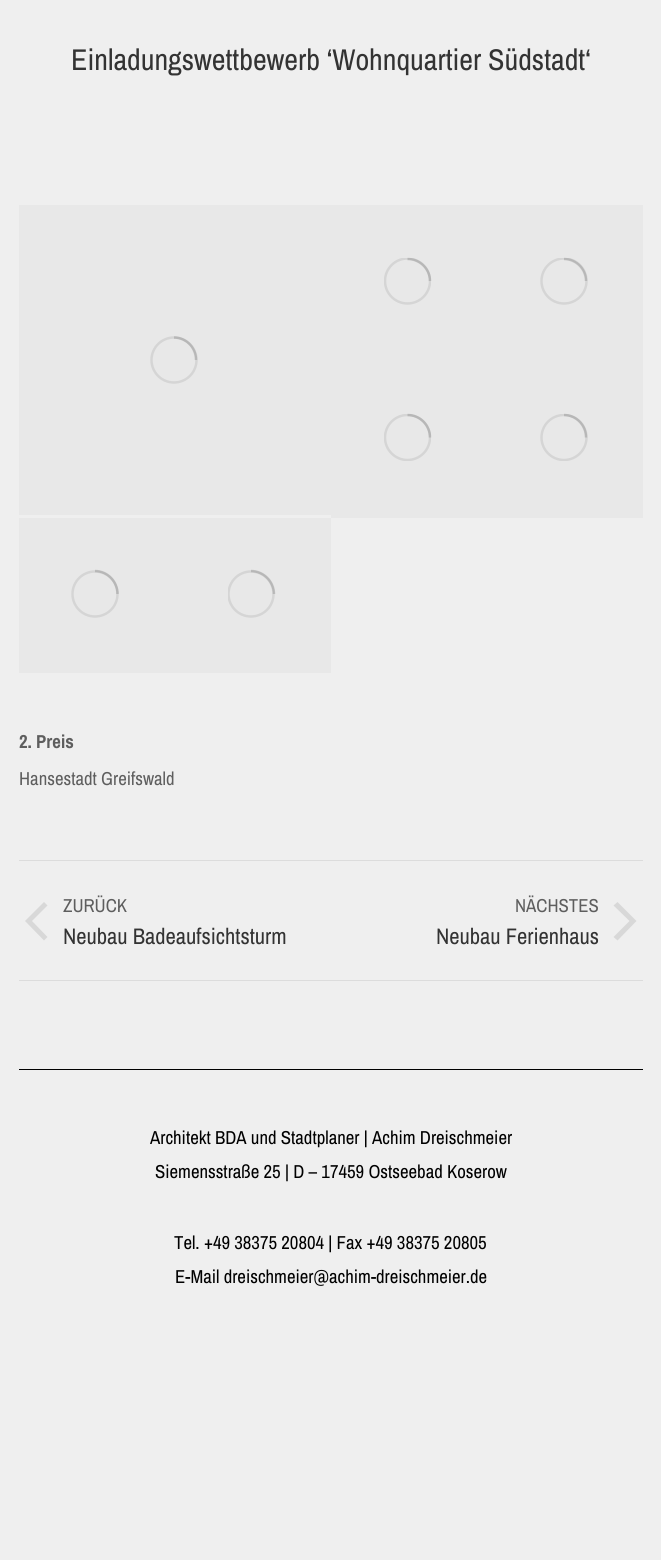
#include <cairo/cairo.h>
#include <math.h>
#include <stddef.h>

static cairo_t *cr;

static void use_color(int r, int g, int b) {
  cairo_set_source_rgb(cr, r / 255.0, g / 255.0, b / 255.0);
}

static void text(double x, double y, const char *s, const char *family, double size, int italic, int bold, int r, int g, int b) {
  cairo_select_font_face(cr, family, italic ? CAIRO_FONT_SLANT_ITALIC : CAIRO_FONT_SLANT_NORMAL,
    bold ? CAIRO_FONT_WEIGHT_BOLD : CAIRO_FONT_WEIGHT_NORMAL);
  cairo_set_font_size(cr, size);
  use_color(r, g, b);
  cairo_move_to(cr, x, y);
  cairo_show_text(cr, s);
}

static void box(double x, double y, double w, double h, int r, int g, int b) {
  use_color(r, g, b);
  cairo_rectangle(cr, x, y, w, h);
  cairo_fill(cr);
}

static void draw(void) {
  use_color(239, 239, 239);
  cairo_paint(cr);
  box(19, 205, 312, 310, 232, 232, 232);
  cairo_arc(cr, 174, 360, 22.5, 0, 2 * M_PI);
  use_color(213, 213, 213);
  cairo_set_line_width(cr, 2.5);
  cairo_stroke(cr);
  cairo_new_path(cr);
  cairo_move_to(cr, 196, 360);
  cairo_curve_to(cr, 196, 347.5, 186, 337.5, 174, 337.5);
  cairo_set_source_rgba(cr, 0.369, 0.369, 0.369, 0.25);
  cairo_stroke(cr);
  box(331, 205, 312, 156, 232, 232, 232);
  cairo_save(cr);
  cairo_rectangle(cr, 384, 258, 47, 47);
  cairo_clip(cr);
  cairo_arc(cr, 407.5, 281, 22.5, 0, 2 * M_PI);
  use_color(213, 213, 213);
  cairo_stroke(cr);
  cairo_restore(cr);
  cairo_new_path(cr);
  cairo_move_to(cr, 430, 281);
  cairo_curve_to(cr, 430, 269, 420, 259, 407.5, 259);
  cairo_set_source_rgba(cr, 0.369, 0.369, 0.369, 0.25);
  cairo_stroke(cr);
  cairo_save(cr);
  cairo_rectangle(cr, 540, 258, 48, 47);
  cairo_clip(cr);
  cairo_arc(cr, 564, 281, 22.5, 0, 2 * M_PI);
  use_color(213, 213, 213);
  cairo_stroke(cr);
  cairo_restore(cr);
  cairo_new_path(cr);
  cairo_move_to(cr, 586, 281);
  cairo_curve_to(cr, 586, 269, 576, 259, 564, 259);
  cairo_stroke(cr);
  box(331, 361, 312, 157, 232, 232, 232);
  cairo_save(cr);
  cairo_rectangle(cr, 384, 414, 47, 47);
  cairo_clip(cr);
  cairo_arc(cr, 407.5, 437.5, 22.5, 0, 2 * M_PI);
  use_color(213, 213, 213);
  cairo_stroke(cr);
  cairo_restore(cr);
  cairo_new_path(cr);
  cairo_move_to(cr, 430, 437.5);
  cairo_curve_to(cr, 430, 425, 420, 415, 407.5, 415);
  cairo_set_source_rgba(cr, 0.369, 0.369, 0.369, 0.25);
  cairo_stroke(cr);
  cairo_save(cr);
  cairo_rectangle(cr, 540, 414, 48, 47);
  cairo_clip(cr);
  cairo_arc(cr, 564, 437.5, 22.5, 0, 2 * M_PI);
  use_color(213, 213, 213);
  cairo_stroke(cr);
  cairo_restore(cr);
  cairo_new_path(cr);
  cairo_move_to(cr, 586, 437.5);
  cairo_curve_to(cr, 586, 425, 576, 415, 564, 415);
  cairo_stroke(cr);
  box(19, 518, 312, 155, 232, 232, 232);
  cairo_arc(cr, 95, 594, 22.5, 0, 2 * M_PI);
  use_color(213, 213, 213);
  cairo_stroke(cr);
  cairo_new_path(cr);
  cairo_move_to(cr, 117.5, 594);
  cairo_curve_to(cr, 117.5, 581.5, 107.5, 571, 95, 571);
  cairo_set_source_rgba(cr, 0.369, 0.369, 0.369, 0.25);
  cairo_stroke(cr);
  cairo_save(cr);
  cairo_rectangle(cr, 228, 570, 47, 48);
  cairo_clip(cr);
  cairo_arc(cr, 251, 594, 22.5, 0, 2 * M_PI);
  use_color(213, 213, 213);
  cairo_stroke(cr);
  cairo_restore(cr);
  cairo_new_path(cr);
  cairo_move_to(cr, 274, 594);
  cairo_curve_to(cr, 274, 581.5, 263.5, 571, 251, 571);
  cairo_stroke(cr);
  box(19, 860, 624, 1, 220, 220, 220);
  box(19, 980, 624, 1, 220, 220, 220);
  use_color(216, 216, 216);
  cairo_new_path(cr);
  cairo_move_to(cr, 32, 921);
  cairo_line_to(cr, 47.5, 905.5);
  cairo_line_to(cr, 44, 902);
  cairo_line_to(cr, 25, 921);
  cairo_line_to(cr, 44, 940.5);
  cairo_line_to(cr, 47.5, 937);
  cairo_close_path(cr);
  cairo_fill(cr);
  cairo_new_path(cr);
  cairo_move_to(cr, 629.5, 921);
  cairo_line_to(cr, 613.5, 905.5);
  cairo_line_to(cr, 617.5, 902);
  cairo_line_to(cr, 636.5, 921);
  cairo_line_to(cr, 617.5, 940.5);
  cairo_line_to(cr, 613.5, 937);
  cairo_close_path(cr);
  cairo_fill(cr);
  box(19, 1069, 624, 1, 0, 0, 0);
  text(71, 70, "Einladungswettbewerb ‘Wohnquartier Südstadt‘", "Archivo Narrow", 30, 0, 0, 51, 51, 51);
  text(19, 748, "2. Preis", "Archivo Narrow", 18.75, 0, 1, 94, 94, 94);
  text(19, 785, "Hansestadt Greifswald", "Archivo Narrow", 18.75, 0, 0, 94, 94, 94);
  text(63, 912, "ZURÜCK", "Archivo Narrow", 18.75, 0, 0, 94, 94, 94);
  text(63, 944, "Neubau Badeaufsichtsturm", "Archivo Narrow", 22.5, 0, 0, 51, 51, 51);
  text(515, 912, "NÄCHSTES", "Archivo Narrow", 18.75, 0, 0, 94, 94, 94);
  text(436, 944, "Neubau Ferienhaus", "Archivo Narrow", 22.5, 0, 0, 51, 51, 51);
  text(150, 1144, "Architekt BDA und Stadtplaner | Achim Dreischmeier", "Archivo Narrow", 18.75, 0, 0, 0, 0, 0);
  text(155, 1178, "Siemensstraße 25 | D – 17459 Ostseebad Koserow", "Archivo Narrow", 18.75, 0, 0, 0, 0, 0);
  text(174, 1249, "Tel. +49 38375 20804 | Fax +49 38375 20805", "Archivo Narrow", 18.75, 0, 0, 0, 0, 0);
  text(175, 1283, "E-Mail dreischmeier@achim-dreischmeier.de", "Archivo Narrow", 18.75, 0, 0, 0, 0, 0);
}

int main(void) {
  cairo_surface_t *surface = cairo_image_surface_create(CAIRO_FORMAT_RGB24, 661, 1560);
  cr = cairo_create(surface);
  cairo_font_options_t *options = cairo_font_options_create();
  cairo_font_options_set_hint_metrics(options, CAIRO_HINT_METRICS_OFF);
  cairo_font_options_set_hint_style(options, CAIRO_HINT_STYLE_NONE);
  cairo_set_font_options(cr, options);
  cairo_set_miter_limit(cr, 4);
  draw();
  cairo_surface_write_to_png(surface, "out.png");
  cairo_font_options_destroy(options);
  cairo_destroy(cr);
  cairo_surface_destroy(surface);
  return 0;
}
